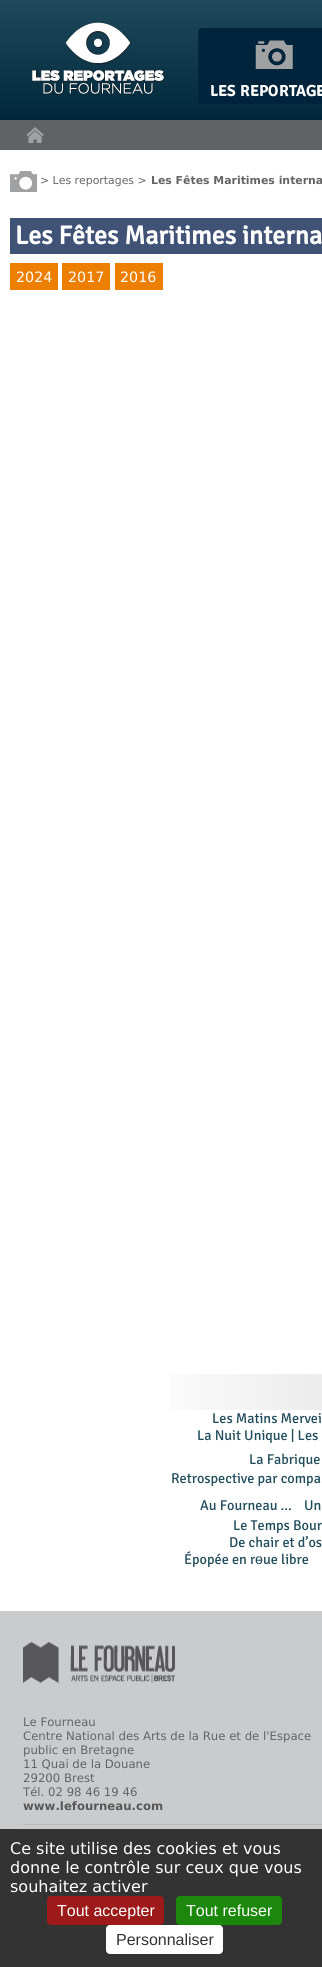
#include <cairo/cairo.h>
#include <math.h>
#include <stddef.h>

static cairo_t *cr;

static void use_color(int r, int g, int b) {
  cairo_set_source_rgb(cr, r / 255.0, g / 255.0, b / 255.0);
}

static void text(double x, double y, const char *s, const char *family, double size, int italic, int bold, int r, int g, int b) {
  cairo_select_font_face(cr, family, italic ? CAIRO_FONT_SLANT_ITALIC : CAIRO_FONT_SLANT_NORMAL,
    bold ? CAIRO_FONT_WEIGHT_BOLD : CAIRO_FONT_WEIGHT_NORMAL);
  cairo_set_font_size(cr, size);
  use_color(r, g, b);
  cairo_move_to(cr, x, y);
  cairo_show_text(cr, s);
}

static void box(double x, double y, double w, double h, int r, int g, int b) {
  use_color(r, g, b);
  cairo_rectangle(cr, x, y, w, h);
  cairo_fill(cr);
}

static void round_rect(double x, double y, double w, double h, double r) {
  cairo_new_sub_path(cr);
  cairo_arc(cr, x + w - r, y + h - r, r, 0, M_PI / 2);
  cairo_arc(cr, x + r, y + h - r, r, M_PI / 2, M_PI);
  cairo_arc(cr, x + r, y + r, r, M_PI, 1.5 * M_PI);
  cairo_arc(cr, x + w - r, y + r, r, 1.5 * M_PI, 2 * M_PI);
  cairo_close_path(cr);
}

static void picture(const char *path, double x, double y, double w, double h) {
  cairo_surface_t *image = cairo_image_surface_create_from_png(path);
  cairo_save(cr);
  cairo_set_source_surface(cr, image, x, y);
  cairo_rectangle(cr, x, y, w, h);
  cairo_fill(cr);
  cairo_restore(cr);
  cairo_surface_destroy(image);
}

static void draw(void) {
  cairo_pattern_t *gradient;
  use_color(255, 255, 255);
  cairo_paint(cr);
  picture("img_01.png", 0, 0, 322, 120);
  picture("img_02.png", 32, 22, 133, 73);
  picture("img_03.png", 198, 28, 124, 76);
  box(0, 120, 322, 30, 97, 98, 100);
  picture("img_04.png", 26, 127, 18, 16);
  picture("img_05.png", 10, 171, 27, 21);
  box(10, 218, 312, 36, 64, 82, 118);
  box(10, 263, 48, 27, 237, 127, 0);
  box(62, 263, 48, 27, 237, 127, 0);
  box(115, 263, 48, 27, 237, 127, 0);
  gradient = cairo_pattern_create_linear(170, 1392, 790, 1392);
  cairo_pattern_add_color_stop_rgba(gradient, 0, 0.984, 0.984, 0.984, 1);
  cairo_pattern_add_color_stop_rgba(gradient, 0.5, 0.863, 0.863, 0.863, 1);
  cairo_pattern_add_color_stop_rgba(gradient, 1, 0.984, 0.984, 0.984, 1);
  cairo_set_source(cr, gradient);
  cairo_pattern_destroy(gradient);
  cairo_rectangle(cr, 170, 1374, 152, 36);
  cairo_fill(cr);
  box(0, 1611, 322, 218, 201, 203, 204);
  picture("img_06.png", 23, 1642, 152, 41);
  box(23, 1824, 299, 1, 187, 187, 187);
  box(0, 1829, 322, 138, 51, 51, 51);
  use_color(156, 26, 26);
  round_rect(47, 1896, 117, 29, 4);
  cairo_fill(cr);
  use_color(27, 135, 11);
  round_rect(176, 1896, 106, 29, 4);
  cairo_fill(cr);
  use_color(255, 255, 255);
  round_rect(106, 1925, 117, 29, 4);
  cairo_fill(cr);
  text(40, 184, "> Les reportages >", "DejaVu Sans", 10.9, 0, 0, 99, 100, 102);
  text(151, 184, "Les Fêtes Maritimes interna", "DejaVu Sans", 10.9, 0, 1, 99, 100, 102);
  text(15, 244, "Les Fêtes Maritimes interna", "Signika", 26, 0, 1, 255, 255, 255);
  text(16, 282, "2024", "DejaVu Sans", 14.25, 0, 0, 255, 255, 255);
  text(68, 282, "2017", "DejaVu Sans", 14.25, 0, 0, 255, 255, 255);
  text(120, 282, "2016", "DejaVu Sans", 14.25, 0, 0, 255, 255, 255);
  text(212, 1423, "Les Matins Mervei", "Signika", 14.25, 0, 0, 31, 75, 91);
  text(197, 1440, "La Nuit Unique | Les", "Signika", 14.25, 0, 0, 31, 75, 91);
  text(249, 1464, "La Fabrique", "Signika", 14.25, 0, 0, 31, 75, 91);
  text(171, 1483, "Retrospective par compa", "Signika", 14.25, 0, 0, 31, 75, 91);
  text(200, 1510, "Au Fourneau ...", "Signika", 14.25, 0, 0, 31, 75, 91);
  text(304, 1510, "Un", "Signika", 14.25, 0, 0, 31, 75, 91);
  text(233, 1530, "Le Temps Bour", "Signika", 14.25, 0, 0, 31, 75, 91);
  text(229, 1547, "De chair et d’os", "Signika", 14.25, 0, 0, 31, 75, 91);
  text(184, 1564, "Épopée en r", "Signika", 14.25, 0, 0, 31, 75, 91);
  text(255, 1564, "ɵ", "Liberation Sans", 14.25, 0, 0, 31, 75, 91);
  text(263, 1564, "ue libre", "Signika", 14.25, 0, 0, 31, 75, 91);
  text(23, 1726, "Le Fourneau", "DejaVu Sans", 11.7, 0, 0, 99, 100, 102);
  text(23, 1740, "Centre National des Arts de la Rue et de l'Espace", "DejaVu Sans", 11.7, 0, 0, 99, 100, 102);
  text(23, 1754, "public en Bretagne", "DejaVu Sans", 11.7, 0, 0, 99, 100, 102);
  text(23, 1768, "11 Quai de la Douane", "DejaVu Sans", 11.7, 0, 0, 99, 100, 102);
  text(23, 1782, "29200 Brest", "DejaVu Sans", 11.7, 0, 0, 99, 100, 102);
  text(23, 1796, "Tél. 02 98 46 19 46", "DejaVu Sans", 11.7, 0, 0, 99, 100, 102);
  text(23, 1810, "www.lefourneau.com", "DejaVu Sans", 11.7, 0, 1, 88, 88, 89);
  text(10, 1854, "Ce site utilise des cookies et vous", "DejaVu Sans", 16, 0, 0, 255, 255, 255);
  text(10, 1873, "donne le contrôle sur ceux que vous", "DejaVu Sans", 16, 0, 0, 255, 255, 255);
  text(10, 1892, "souhaitez activer", "DejaVu Sans", 16, 0, 0, 255, 255, 255);
  text(57, 1916, "Tout accepter", "Liberation Sans", 16, 0, 0, 255, 255, 255);
  text(186, 1916, "Tout refuser", "Liberation Sans", 16, 0, 0, 255, 255, 255);
  text(116, 1945, "Personnaliser", "Liberation Sans", 16, 0, 0, 51, 51, 51);
}

int main(void) {
  cairo_surface_t *surface = cairo_image_surface_create(CAIRO_FORMAT_RGB24, 322, 1967);
  cr = cairo_create(surface);
  cairo_font_options_t *options = cairo_font_options_create();
  cairo_font_options_set_hint_metrics(options, CAIRO_HINT_METRICS_OFF);
  cairo_font_options_set_hint_style(options, CAIRO_HINT_STYLE_NONE);
  cairo_set_font_options(cr, options);
  cairo_set_miter_limit(cr, 4);
  draw();
  cairo_surface_write_to_png(surface, "out.png");
  cairo_font_options_destroy(options);
  cairo_destroy(cr);
  cairo_surface_destroy(surface);
  return 0;
}
